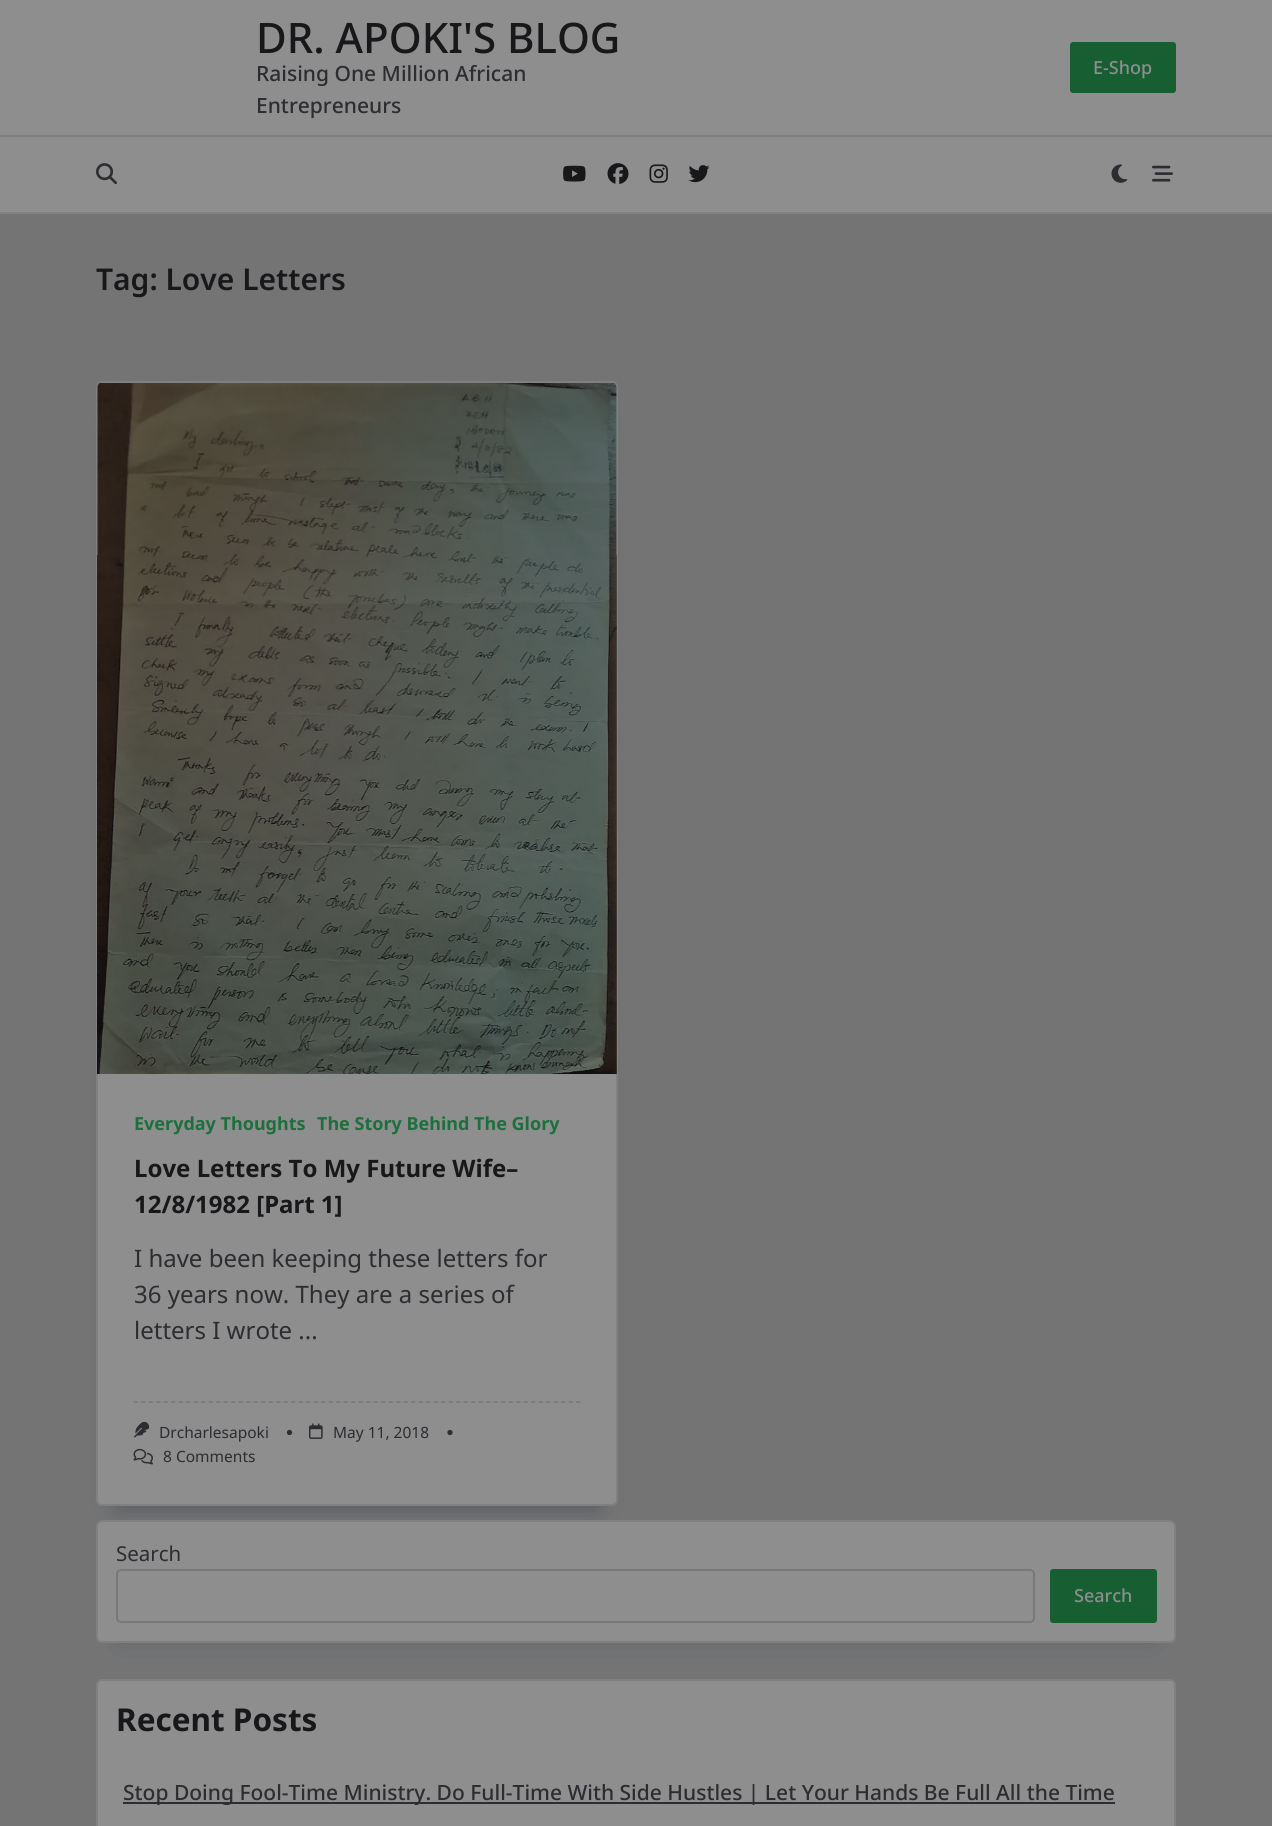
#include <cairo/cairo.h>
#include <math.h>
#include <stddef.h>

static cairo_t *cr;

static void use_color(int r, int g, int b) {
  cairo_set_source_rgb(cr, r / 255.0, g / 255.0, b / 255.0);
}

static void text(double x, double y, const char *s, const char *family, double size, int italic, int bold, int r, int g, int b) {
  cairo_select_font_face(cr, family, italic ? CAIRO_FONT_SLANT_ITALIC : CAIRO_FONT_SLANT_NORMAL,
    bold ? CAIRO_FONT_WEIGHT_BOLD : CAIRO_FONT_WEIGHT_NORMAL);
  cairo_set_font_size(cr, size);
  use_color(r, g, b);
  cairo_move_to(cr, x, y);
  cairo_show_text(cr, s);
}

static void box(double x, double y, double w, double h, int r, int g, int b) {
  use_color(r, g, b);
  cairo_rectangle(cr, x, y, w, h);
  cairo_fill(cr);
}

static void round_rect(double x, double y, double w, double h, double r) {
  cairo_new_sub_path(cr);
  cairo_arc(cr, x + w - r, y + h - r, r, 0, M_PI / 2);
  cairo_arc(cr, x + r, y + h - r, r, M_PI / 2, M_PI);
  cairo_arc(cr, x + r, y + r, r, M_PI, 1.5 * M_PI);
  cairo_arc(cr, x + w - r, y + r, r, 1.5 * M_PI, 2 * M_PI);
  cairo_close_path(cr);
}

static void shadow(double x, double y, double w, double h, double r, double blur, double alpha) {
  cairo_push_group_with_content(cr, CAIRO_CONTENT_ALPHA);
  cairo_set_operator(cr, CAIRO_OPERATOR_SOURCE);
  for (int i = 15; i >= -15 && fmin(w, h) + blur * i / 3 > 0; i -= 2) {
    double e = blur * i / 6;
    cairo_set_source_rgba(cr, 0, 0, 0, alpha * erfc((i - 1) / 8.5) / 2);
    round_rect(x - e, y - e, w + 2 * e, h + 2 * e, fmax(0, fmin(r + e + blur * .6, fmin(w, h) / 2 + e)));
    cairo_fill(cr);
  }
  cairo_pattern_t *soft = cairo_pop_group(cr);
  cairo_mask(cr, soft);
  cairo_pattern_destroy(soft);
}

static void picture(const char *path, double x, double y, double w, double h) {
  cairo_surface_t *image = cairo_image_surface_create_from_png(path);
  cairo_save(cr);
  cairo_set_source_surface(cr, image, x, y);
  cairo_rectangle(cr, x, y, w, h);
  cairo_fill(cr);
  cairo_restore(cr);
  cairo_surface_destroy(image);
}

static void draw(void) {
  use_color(116, 116, 117);
  cairo_paint(cr);
  box(0, 0, 1272, 135, 142, 142, 143);
  box(0, 135, 1272, 2, 128, 128, 131);
  use_color(23, 95, 51);
  round_rect(1071, 43, 104, 49, 2);
  cairo_fill_preserve(cr);
  cairo_stroke(cr);
  box(0, 137, 1272, 75, 142, 142, 143);
  box(0, 212, 1272, 2, 128, 128, 131);
  picture("img_01.png", 96, 163, 21, 22);
  picture("img_02.png", 563, 165, 23, 17);
  picture("img_03.png", 607, 163, 22, 21);
  picture("img_04.png", 649, 164, 19, 19);
  picture("img_05.png", 688, 165, 22, 18);
  picture("img_06.png", 1111, 164, 17, 19);
  picture("img_07.png", 1152, 165, 21, 17);
  use_color(34, 43, 54);
  shadow(119, 426, 477, 1080, 0, 13.5, 0.45);
  use_color(142, 142, 143);
  round_rect(97, 382, 520, 1123, 5);
  cairo_fill_preserve(cr);
  use_color(128, 128, 131);
  cairo_stroke(cr);
  picture("img_08.png", 97, 383, 520, 691);
  cairo_new_path(cr);
  cairo_move_to(cr, 133.5, 1402);
  cairo_line_to(cr, 580.5, 1402);
  use_color(120, 120, 123);
  cairo_set_line_width(cr, 1.5);
  cairo_set_dash(cr, (double[]){4.5, 3}, 2, 0);
  cairo_stroke(cr);
  picture("img_09.png", 134, 1421, 16, 17);
  picture("img_10.png", 286, 1429, 7, 7);
  picture("img_11.png", 309, 1423, 14, 16);
  picture("img_12.png", 447, 1429, 6, 7);
  picture("img_13.png", 133, 1448, 20, 17);
  use_color(34, 43, 54);
  shadow(119, 1565, 1035, 78, 0, 13.5, 0.15);
  use_color(142, 142, 143);
  round_rect(97, 1521, 1078, 121, 5);
  cairo_fill_preserve(cr);
  use_color(128, 128, 131);
  cairo_set_line_width(cr, 2);
  cairo_set_dash(cr, NULL, 0, 0);
  cairo_stroke(cr);
  round_rect(117, 1570, 917, 52, 4);
  use_color(120, 120, 123);
  cairo_stroke(cr);
  use_color(23, 95, 51);
  round_rect(1051, 1570, 105, 52, 2);
  cairo_fill_preserve(cr);
  cairo_stroke(cr);
  use_color(142, 142, 143);
  round_rect(97, 1680, 1078, 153, 5);
  cairo_fill_preserve(cr);
  use_color(128, 128, 131);
  cairo_stroke(cr);
  box(123, 1802, 992, 2, 44, 44, 49);
  text(256, 53, "DR. APOKI'S BLOG", "Noto Sans Medium", 42, 0, 0, 24, 24, 27);
  text(256, 81, "Raising One Million African", "Noto Sans Medium", 21, 0, 0, 44, 44, 49);
  text(256, 113, "Entrepreneurs", "Noto Sans Medium", 21, 0, 0, 44, 44, 49);
  text(1093, 74, "E-Shop", "Noto Sans Medium", 18, 0, 0, 142, 142, 143);
  text(96, 290, "Tag: Love Letters", "Noto Sans SemiBold", 30, 0, 0, 24, 24, 27);
  text(134, 1130, "Everyday Thoughts", "Noto Sans", 18, 0, 1, 29, 112, 61);
  text(317, 1130, "The Story Behind The Glory", "Noto Sans", 18, 0, 1, 29, 112, 61);
  text(134, 1177, "Love Letters To My Future Wife–", "Noto Sans", 24, 0, 1, 24, 24, 27);
  text(134, 1213, "12/8/1982 [Part 1]", "Noto Sans", 24, 0, 1, 24, 24, 27);
  text(134, 1267, "I have been keeping these letters for", "Noto Sans", 24, 0, 0, 44, 44, 49);
  text(134, 1303, "36 years now. They are a series of", "Noto Sans", 24, 0, 0, 44, 44, 49);
  text(134, 1339, "letters I wrote ...", "Noto Sans", 24, 0, 0, 44, 44, 49);
  text(159, 1438, "Drcharlesapoki", "Noto Sans", 15.5, 0, 0, 44, 44, 49);
  text(333, 1438, "May 11, 2018", "Noto Sans", 15.5, 0, 0, 44, 44, 49);
  text(163, 1462, "8 Comments", "Noto Sans", 15.5, 0, 0, 44, 44, 49);
  text(116, 1561, "Search", "Noto Sans", 20.5, 0, 0, 44, 44, 49);
  text(1074, 1602, "Search", "Noto Sans Medium", 18, 0, 0, 142, 142, 143);
  text(116, 1731, "Recent Posts", "Noto Sans", 31.5, 0, 1, 24, 24, 27);
  text(123, 1800, "Stop Doing Fool-Time Ministry. Do Full-Time With Side Hustles | Let Your Hands Be Full All the Time", "Noto Sans Medium", 21, 0, 0, 44, 44, 49);
}

int main(void) {
  cairo_surface_t *surface = cairo_image_surface_create(CAIRO_FORMAT_RGB24, 1272, 1826);
  cr = cairo_create(surface);
  cairo_font_options_t *options = cairo_font_options_create();
  cairo_font_options_set_hint_metrics(options, CAIRO_HINT_METRICS_OFF);
  cairo_font_options_set_hint_style(options, CAIRO_HINT_STYLE_NONE);
  cairo_set_font_options(cr, options);
  cairo_set_miter_limit(cr, 4);
  draw();
  cairo_surface_write_to_png(surface, "out.png");
  cairo_font_options_destroy(options);
  cairo_destroy(cr);
  cairo_surface_destroy(surface);
  return 0;
}
